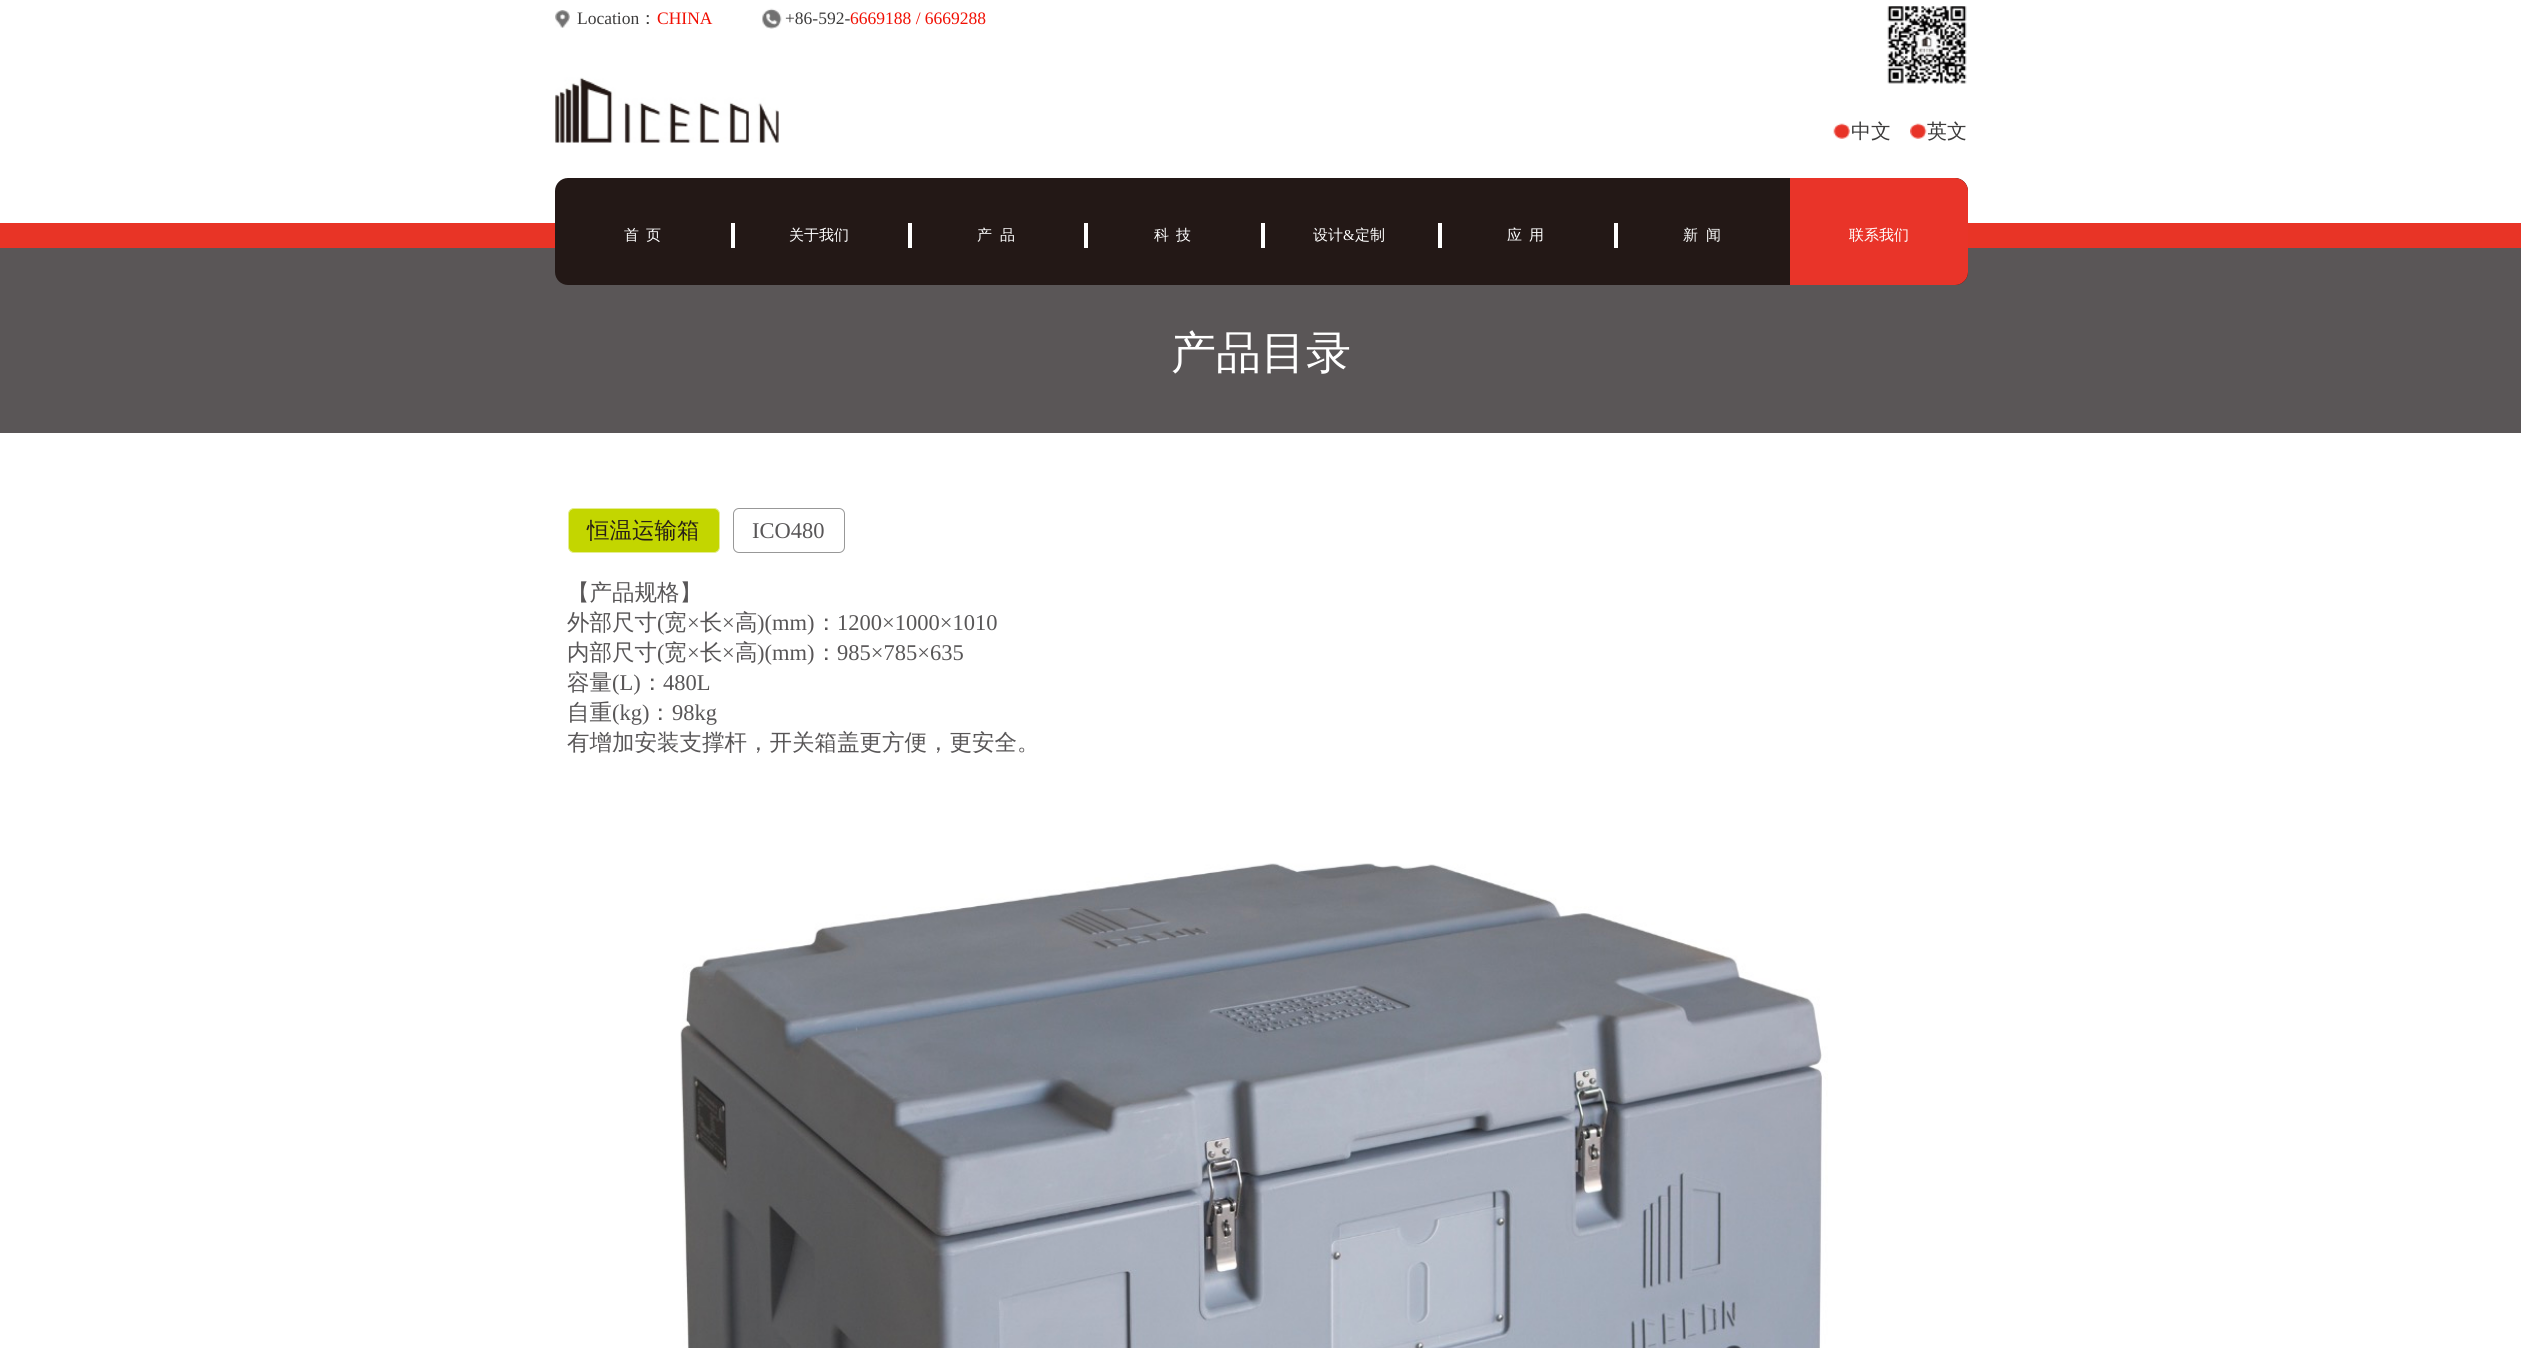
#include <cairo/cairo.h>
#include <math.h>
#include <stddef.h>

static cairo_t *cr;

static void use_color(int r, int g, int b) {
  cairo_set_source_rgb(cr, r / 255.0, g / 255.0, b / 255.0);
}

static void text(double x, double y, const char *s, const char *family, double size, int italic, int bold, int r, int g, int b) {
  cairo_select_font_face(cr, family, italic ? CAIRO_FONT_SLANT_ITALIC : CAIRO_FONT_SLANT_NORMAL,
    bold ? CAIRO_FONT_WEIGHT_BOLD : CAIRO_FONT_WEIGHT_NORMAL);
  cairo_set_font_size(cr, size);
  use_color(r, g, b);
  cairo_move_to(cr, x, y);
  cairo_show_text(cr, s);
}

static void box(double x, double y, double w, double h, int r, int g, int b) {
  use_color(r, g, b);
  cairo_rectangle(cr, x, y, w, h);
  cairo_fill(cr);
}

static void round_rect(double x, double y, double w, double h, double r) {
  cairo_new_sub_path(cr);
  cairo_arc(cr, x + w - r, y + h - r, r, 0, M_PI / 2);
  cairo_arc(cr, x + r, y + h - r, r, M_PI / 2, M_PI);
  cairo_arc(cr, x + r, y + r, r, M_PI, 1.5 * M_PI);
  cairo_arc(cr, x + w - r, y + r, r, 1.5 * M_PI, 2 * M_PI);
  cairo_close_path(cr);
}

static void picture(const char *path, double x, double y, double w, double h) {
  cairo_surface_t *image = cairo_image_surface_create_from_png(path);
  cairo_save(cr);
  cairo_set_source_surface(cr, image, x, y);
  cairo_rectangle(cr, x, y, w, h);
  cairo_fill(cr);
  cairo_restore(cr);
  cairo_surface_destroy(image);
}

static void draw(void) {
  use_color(255, 255, 255);
  cairo_paint(cr);
  picture("img_01.png", 555, 10, 15, 18);
  picture("img_02.png", 762, 8, 20, 21);
  picture("img_03.png", 555, 77, 224, 66);
  picture("img_04.png", 1887, 6, 80, 78);
  picture("img_05.png", 1833, 123, 17, 16);
  picture("img_06.png", 1910, 123, 17, 16);
  box(0, 248, 2521, 185, 90, 86, 87);
  box(0, 223, 2521, 25, 232, 52, 38);
  use_color(35, 24, 22);
  round_rect(555, 178, 1413, 107, 13);
  cairo_fill(cr);
  box(731, 223, 4, 25, 255, 255, 255);
  box(908, 223, 4, 25, 255, 255, 255);
  box(1084, 223, 4, 25, 255, 255, 255);
  box(1261, 223, 4, 25, 255, 255, 255);
  box(1438, 223, 4, 25, 255, 255, 255);
  box(1614, 223, 4, 25, 255, 255, 255);
  use_color(233, 52, 41);
  cairo_new_path(cr);
  cairo_move_to(cr, 1790, 178);
  cairo_line_to(cr, 1955, 178);
  cairo_curve_to(cr, 1962, 178, 1968, 184, 1968, 191);
  cairo_line_to(cr, 1968, 272);
  cairo_curve_to(cr, 1968, 279, 1962, 285, 1955, 285);
  cairo_line_to(cr, 1790, 285);
  cairo_close_path(cr);
  cairo_fill(cr);
  use_color(195, 214, 0);
  round_rect(568.5, 508.5, 151, 44, 5.5);
  cairo_fill_preserve(cr);
  use_color(228, 237, 146);
  cairo_set_line_width(cr, 1);
  cairo_stroke(cr);
  round_rect(733.5, 508.5, 111, 44, 5.5);
  use_color(152, 152, 152);
  cairo_stroke(cr);
  picture("img_07.png", 680, 863, 1148, 485);
  text(577, 24, "Location", "Liberation Serif", 17.5, 0, 0, 61, 60, 60);
  text(639, 24, "：", "WenQuanYi Zen Hei Medium", 17.5, 0, 0, 61, 60, 60);
  text(657, 24, "CHINA", "Liberation Serif", 17.5, 0, 0, 241, 15, 3);
  text(785, 24, "+86-592-", "Liberation Serif", 17.5, 0, 0, 61, 60, 60);
  text(850, 24, "6669188 / 6669288", "Liberation Serif", 17.5, 0, 0, 241, 15, 3);
  text(1851, 138, "中文", "WenQuanYi Zen Hei Medium", 20, 0, 0, 61, 60, 60);
  text(1927, 138, "英文", "WenQuanYi Zen Hei Medium", 20, 0, 0, 61, 60, 60);
  text(624, 240, "首", "WenQuanYi Zen Hei Medium", 15, 0, 0, 255, 255, 255);
  text(646, 240, "页", "WenQuanYi Zen Hei Medium", 15, 0, 0, 255, 255, 255);
  text(789, 240, "关于我们", "WenQuanYi Zen Hei Medium", 15, 0, 0, 255, 255, 255);
  text(977, 240, "产", "WenQuanYi Zen Hei Medium", 15, 0, 0, 255, 255, 255);
  text(1000, 240, "品", "WenQuanYi Zen Hei Medium", 15, 0, 0, 255, 255, 255);
  text(1154, 240, "科", "WenQuanYi Zen Hei Medium", 15, 0, 0, 255, 255, 255);
  text(1176, 240, "技", "WenQuanYi Zen Hei Medium", 15, 0, 0, 255, 255, 255);
  text(1313, 240, "设计", "WenQuanYi Zen Hei Medium", 15, 0, 0, 255, 255, 255);
  text(1343, 240, "&", "Liberation Serif", 15, 0, 0, 255, 255, 255);
  text(1355, 240, "定制", "WenQuanYi Zen Hei Medium", 15, 0, 0, 255, 255, 255);
  text(1507, 240, "应", "WenQuanYi Zen Hei Medium", 15, 0, 0, 255, 255, 255);
  text(1529, 240, "用", "WenQuanYi Zen Hei Medium", 15, 0, 0, 255, 255, 255);
  text(1683, 240, "新", "WenQuanYi Zen Hei Medium", 15, 0, 0, 255, 255, 255);
  text(1706, 240, "闻", "WenQuanYi Zen Hei Medium", 15, 0, 0, 255, 255, 255);
  text(1849, 240, "联系我们", "WenQuanYi Zen Hei Medium", 15, 0, 0, 255, 255, 255);
  text(1171, 368, "产品目录", "WenQuanYi Zen Hei Medium", 45, 0, 0, 255, 255, 255);
  text(587, 538, "恒温运输箱", "WenQuanYi Zen Hei Medium", 22.5, 0, 0, 40, 31, 22);
  text(752, 538, "ICO480", "Liberation Serif", 22.5, 0, 0, 88, 86, 87);
  text(567, 600, "【产品规格】", "WenQuanYi Zen Hei Medium", 22.5, 0, 0, 88, 86, 87);
  text(567, 630, "外部尺寸", "WenQuanYi Zen Hei Medium", 22.5, 0, 0, 88, 86, 87);
  text(657, 630, "(", "Liberation Serif", 22.5, 0, 0, 88, 86, 87);
  text(664, 630, "宽", "WenQuanYi Zen Hei Medium", 22.5, 0, 0, 88, 86, 87);
  text(687, 630, "×", "Liberation Serif", 22.5, 0, 0, 88, 86, 87);
  text(700, 630, "长", "WenQuanYi Zen Hei Medium", 22.5, 0, 0, 88, 86, 87);
  text(722, 630, "×", "Liberation Serif", 22.5, 0, 0, 88, 86, 87);
  text(735, 630, "高", "WenQuanYi Zen Hei Medium", 22.5, 0, 0, 88, 86, 87);
  text(757, 630, ")(mm)", "Liberation Serif", 22.5, 0, 0, 88, 86, 87);
  text(815, 630, "：", "WenQuanYi Zen Hei Medium", 22.5, 0, 0, 88, 86, 87);
  text(837, 630, "1200×1000×1010", "Liberation Serif", 22.5, 0, 0, 88, 86, 87);
  text(567, 660, "内部尺寸", "WenQuanYi Zen Hei Medium", 22.5, 0, 0, 88, 86, 87);
  text(657, 660, "(", "Liberation Serif", 22.5, 0, 0, 88, 86, 87);
  text(664, 660, "宽", "WenQuanYi Zen Hei Medium", 22.5, 0, 0, 88, 86, 87);
  text(687, 660, "×", "Liberation Serif", 22.5, 0, 0, 88, 86, 87);
  text(700, 660, "长", "WenQuanYi Zen Hei Medium", 22.5, 0, 0, 88, 86, 87);
  text(722, 660, "×", "Liberation Serif", 22.5, 0, 0, 88, 86, 87);
  text(735, 660, "高", "WenQuanYi Zen Hei Medium", 22.5, 0, 0, 88, 86, 87);
  text(757, 660, ")(mm)", "Liberation Serif", 22.5, 0, 0, 88, 86, 87);
  text(815, 660, "：", "WenQuanYi Zen Hei Medium", 22.5, 0, 0, 88, 86, 87);
  text(837, 660, "985×785×635", "Liberation Serif", 22.5, 0, 0, 88, 86, 87);
  text(567, 690, "容量", "WenQuanYi Zen Hei Medium", 22.5, 0, 0, 88, 86, 87);
  text(612, 690, "(L)", "Liberation Serif", 22.5, 0, 0, 88, 86, 87);
  text(641, 690, "：", "WenQuanYi Zen Hei Medium", 22.5, 0, 0, 88, 86, 87);
  text(663, 690, "480L", "Liberation Serif", 22.5, 0, 0, 88, 86, 87);
  text(567, 720, "自重", "WenQuanYi Zen Hei Medium", 22.5, 0, 0, 88, 86, 87);
  text(612, 720, "(kg)", "Liberation Serif", 22.5, 0, 0, 88, 86, 87);
  text(649, 720, "：", "WenQuanYi Zen Hei Medium", 22.5, 0, 0, 88, 86, 87);
  text(672, 720, "98kg", "Liberation Serif", 22.5, 0, 0, 88, 86, 87);
  text(567, 750, "有增加安装支撑杆，开关箱盖更方便，更安全。", "WenQuanYi Zen Hei Medium", 22.5, 0, 0, 88, 86, 87);
}

int main(void) {
  cairo_surface_t *surface = cairo_image_surface_create(CAIRO_FORMAT_RGB24, 2521, 1348);
  cr = cairo_create(surface);
  cairo_font_options_t *options = cairo_font_options_create();
  cairo_font_options_set_hint_metrics(options, CAIRO_HINT_METRICS_OFF);
  cairo_font_options_set_hint_style(options, CAIRO_HINT_STYLE_NONE);
  cairo_set_font_options(cr, options);
  cairo_set_miter_limit(cr, 4);
  draw();
  cairo_surface_write_to_png(surface, "out.png");
  cairo_font_options_destroy(options);
  cairo_destroy(cr);
  cairo_surface_destroy(surface);
  return 0;
}
